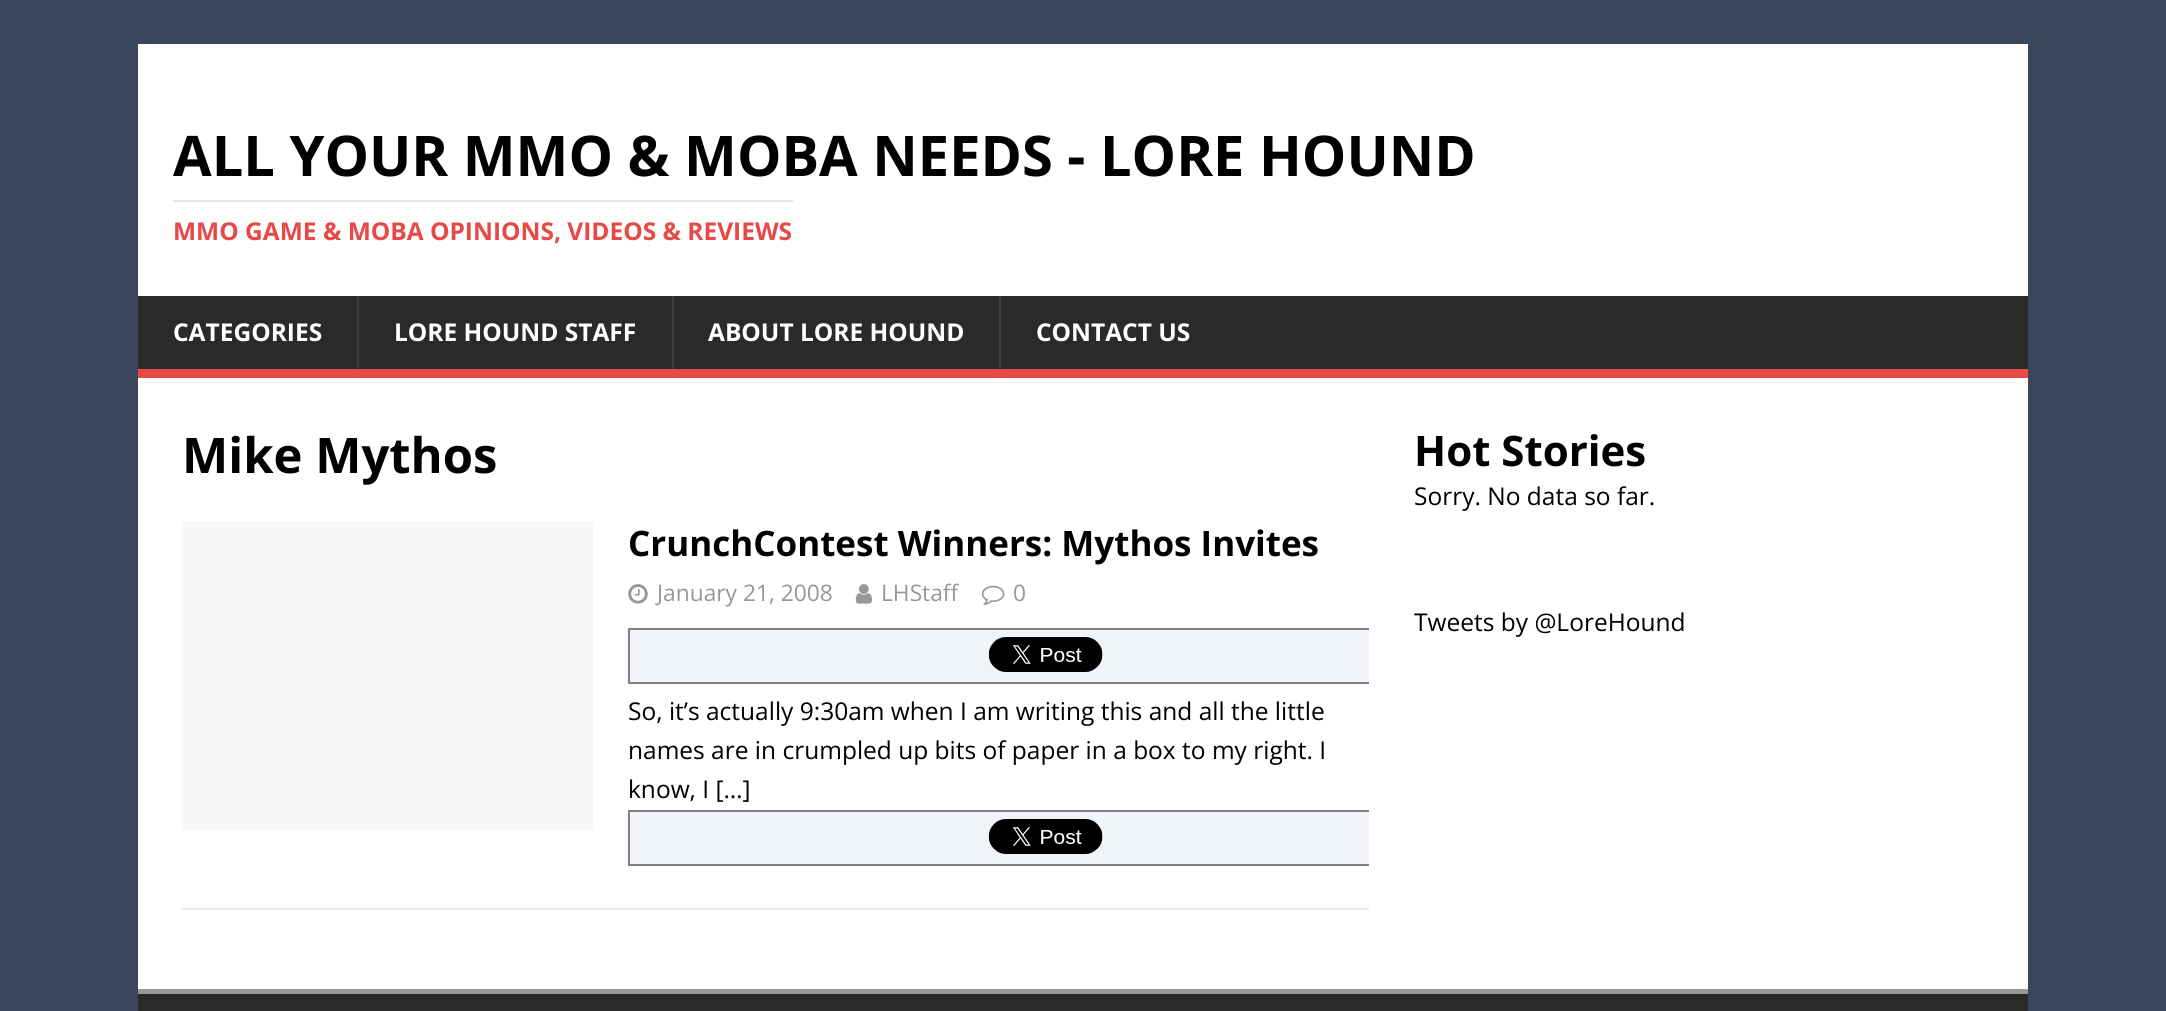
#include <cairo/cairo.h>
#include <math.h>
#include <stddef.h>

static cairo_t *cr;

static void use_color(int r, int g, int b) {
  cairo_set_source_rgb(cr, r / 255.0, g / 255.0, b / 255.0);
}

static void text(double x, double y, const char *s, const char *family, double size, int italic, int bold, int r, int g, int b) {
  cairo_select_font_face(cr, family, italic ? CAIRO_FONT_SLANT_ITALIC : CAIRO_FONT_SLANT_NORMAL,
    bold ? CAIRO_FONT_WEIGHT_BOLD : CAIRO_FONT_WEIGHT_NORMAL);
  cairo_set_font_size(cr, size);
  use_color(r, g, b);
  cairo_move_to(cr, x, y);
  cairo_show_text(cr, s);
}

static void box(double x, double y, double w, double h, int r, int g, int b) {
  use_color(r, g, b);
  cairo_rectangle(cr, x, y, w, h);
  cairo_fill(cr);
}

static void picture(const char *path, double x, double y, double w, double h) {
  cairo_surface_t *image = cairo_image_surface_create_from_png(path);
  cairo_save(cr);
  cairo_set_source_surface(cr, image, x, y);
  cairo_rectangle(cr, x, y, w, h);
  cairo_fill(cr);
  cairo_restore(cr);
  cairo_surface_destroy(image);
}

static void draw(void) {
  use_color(56, 71, 92);
  cairo_paint(cr);
  box(138, 44, 1890, 252, 255, 255, 255);
  box(173, 200, 620, 2, 229, 229, 229);
  box(138, 296, 1890, 73, 42, 42, 42);
  box(138, 369, 1890, 9, 230, 73, 70);
  box(357, 296, 2, 73, 63, 63, 63);
  box(672, 296, 2, 73, 63, 63, 63);
  box(999, 296, 2, 73, 63, 63, 63);
  box(138, 378, 1890, 611, 255, 255, 255);
  box(182, 908, 1187, 2, 235, 235, 235);
  box(182, 521, 411, 309, 247, 247, 247);
  picture("img_01.png", 628, 584, 20, 20);
  picture("img_02.png", 855, 584, 17, 20);
  picture("img_03.png", 981, 585, 24, 21);
  box(630, 630, 739, 52, 240, 244, 249);
  cairo_save(cr);
  cairo_rectangle(cr, 628, 628, 741, 245);
  cairo_clip(cr);
  cairo_rectangle(cr, 629, 629, 742, 54);
  use_color(128, 128, 128);
  cairo_stroke(cr);
  cairo_restore(cr);
  picture("img_04.png", 988, 637, 115, 35);
  box(630, 812, 739, 52, 240, 244, 249);
  cairo_save(cr);
  cairo_rectangle(cr, 628, 628, 741, 245);
  cairo_clip(cr);
  cairo_rectangle(cr, 629, 811, 742, 54);
  use_color(128, 128, 128);
  cairo_stroke(cr);
  cairo_restore(cr);
  picture("img_04.png", 988, 819, 115, 35);
  box(138, 994, 1890, 17, 42, 42, 42);
  box(138, 989, 1890, 5, 153, 153, 153);
  text(173, 176, "ALL YOUR MMO & MOBA NEEDS - LORE HOUND", "Open Sans", 56, 0, 1, 0, 0, 0);
  text(173, 240, "MMO GAME & MOBA OPINIONS, VIDEOS & REVIEWS", "Open Sans", 24.5, 0, 1, 230, 73, 70);
  text(173, 341, "CATEGORIES", "Open Sans", 24.5, 0, 1, 255, 255, 255);
  text(394, 341, "LORE HOUND STAFF", "Open Sans", 24.5, 0, 1, 255, 255, 255);
  text(708, 341, "ABOUT LORE HOUND", "Open Sans", 24.5, 0, 1, 255, 255, 255);
  text(1036, 341, "CONTACT US", "Open Sans", 24.5, 0, 1, 255, 255, 255);
  text(182, 473, "Mike Mythos", "Open Sans", 49, 0, 1, 0, 0, 0);
  text(628, 556, "CrunchContest Winners: Mythos Invites", "Open Sans", 35, 0, 1, 0, 0, 0);
  text(657, 601, "January 21, 2008", "Open Sans", 22.75, 0, 0, 151, 151, 151);
  text(881, 601, "LHStaff", "Open Sans", 22.75, 0, 0, 151, 151, 151);
  text(1013, 601, "0", "Open Sans", 22.75, 0, 0, 151, 151, 151);
  text(628, 720, "So, it’s actually 9:30am when I am writing this and all the little", "Open Sans", 24.5, 0, 0, 0, 0, 0);
  text(628, 759, "names are in crumpled up bits of paper in a box to my right. I", "Open Sans", 24.5, 0, 0, 0, 0, 0);
  text(628, 798, "know, I […]", "Open Sans", 24.5, 0, 0, 0, 0, 0);
  text(1414, 466, "Hot Stories", "Open Sans", 42, 0, 1, 0, 0, 0);
  text(1414, 505, "Sorry. No data so far.", "Open Sans", 24.5, 0, 0, 0, 0, 0);
  text(1414, 631, "Tweets by @LoreHound", "Open Sans", 24.5, 0, 0, 0, 0, 0);
}

int main(void) {
  cairo_surface_t *surface = cairo_image_surface_create(CAIRO_FORMAT_RGB24, 2166, 1011);
  cr = cairo_create(surface);
  cairo_font_options_t *options = cairo_font_options_create();
  cairo_font_options_set_hint_metrics(options, CAIRO_HINT_METRICS_OFF);
  cairo_font_options_set_hint_style(options, CAIRO_HINT_STYLE_NONE);
  cairo_set_font_options(cr, options);
  cairo_set_miter_limit(cr, 4);
  draw();
  cairo_surface_write_to_png(surface, "out.png");
  cairo_font_options_destroy(options);
  cairo_destroy(cr);
  cairo_surface_destroy(surface);
  return 0;
}
